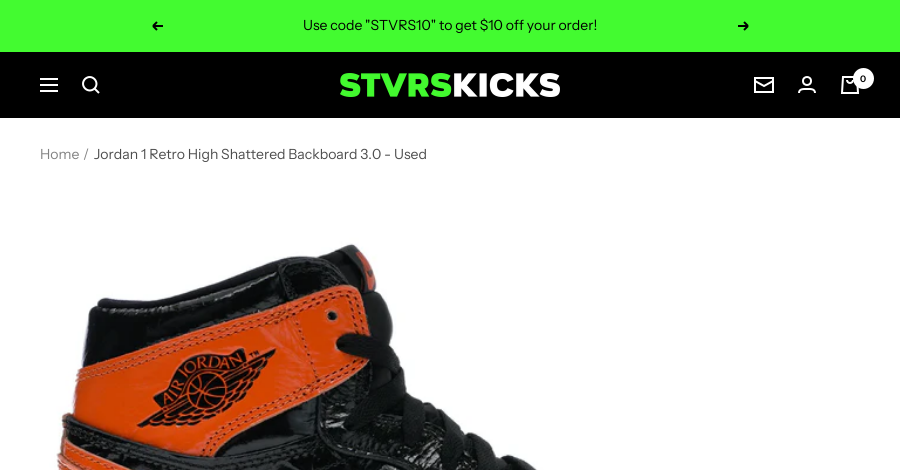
#include <cairo/cairo.h>
#include <math.h>
#include <stddef.h>

static cairo_t *cr;

static void use_color(int r, int g, int b) {
  cairo_set_source_rgb(cr, r / 255.0, g / 255.0, b / 255.0);
}

static void text(double x, double y, const char *s, const char *family, double size, int italic, int bold, int r, int g, int b) {
  cairo_select_font_face(cr, family, italic ? CAIRO_FONT_SLANT_ITALIC : CAIRO_FONT_SLANT_NORMAL,
    bold ? CAIRO_FONT_WEIGHT_BOLD : CAIRO_FONT_WEIGHT_NORMAL);
  cairo_set_font_size(cr, size);
  use_color(r, g, b);
  cairo_move_to(cr, x, y);
  cairo_show_text(cr, s);
}

static void box(double x, double y, double w, double h, int r, int g, int b) {
  use_color(r, g, b);
  cairo_rectangle(cr, x, y, w, h);
  cairo_fill(cr);
}

static void picture(const char *path, double x, double y, double w, double h) {
  cairo_surface_t *image = cairo_image_surface_create_from_png(path);
  cairo_save(cr);
  cairo_set_source_surface(cr, image, x, y);
  cairo_rectangle(cr, x, y, w, h);
  cairo_fill(cr);
  cairo_restore(cr);
  cairo_surface_destroy(image);
}

static void draw(void) {
  use_color(255, 255, 255);
  cairo_paint(cr);
  box(0, 0, 900, 52, 67, 251, 48);
  cairo_new_path(cr);
  cairo_move_to(cr, 163, 26);
  cairo_line_to(cr, 153, 26);
  cairo_move_to(cr, 153, 26);
  cairo_line_to(cr, 157, 30);
  cairo_move_to(cr, 153, 26);
  cairo_line_to(cr, 157, 22);
  use_color(0, 0, 0);
  cairo_stroke(cr);
  cairo_new_path(cr);
  cairo_move_to(cr, 738, 26);
  cairo_line_to(cr, 748, 26);
  cairo_move_to(cr, 748, 26);
  cairo_line_to(cr, 744, 30);
  cairo_move_to(cr, 748, 26);
  cairo_line_to(cr, 744, 22);
  cairo_stroke(cr);
  box(0, 52, 900, 66, 0, 0, 0);
  cairo_new_path(cr);
  cairo_move_to(cr, 40, 79);
  cairo_line_to(cr, 58, 79);
  cairo_move_to(cr, 40, 91);
  cairo_line_to(cr, 58, 91);
  cairo_close_path(cr);
  cairo_move_to(cr, 40, 85);
  cairo_line_to(cr, 58, 85);
  cairo_close_path(cr);
  cairo_move_to(cr, 94.5, 88.5);
  cairo_curve_to(cr, 100.5, 82, 91.5, 73, 85, 79);
  cairo_curve_to(cr, 79, 85.5, 88, 94.5, 94.5, 88.5);
  cairo_close_path(cr);
  cairo_move_to(cr, 94.5, 88.5);
  cairo_line_to(cr, 99, 93);
  use_color(255, 255, 255);
  cairo_stroke(cr);
  picture("img_01.png", 340, 73, 220, 24);
  cairo_new_path(cr);
  cairo_move_to(cr, 773, 81);
  cairo_line_to(cr, 764, 86);
  cairo_line_to(cr, 755, 81);
  cairo_move_to(cr, 755, 78);
  cairo_line_to(cr, 773, 78);
  cairo_line_to(cr, 773, 92);
  cairo_line_to(cr, 755, 92);
  cairo_close_path(cr);
  cairo_stroke(cr);
  cairo_arc(cr, 807, 81, 4, 0, 2 * M_PI);
  cairo_stroke(cr);
  cairo_new_path(cr);
  cairo_move_to(cr, 799, 93);
  cairo_curve_to(cr, 799, 88.5, 804, 89, 807, 89);
  cairo_curve_to(cr, 810, 89, 815, 88.5, 815, 93);
  cairo_stroke(cr);
  picture("img_02.png", 840, 76, 20, 18);
  cairo_arc(cr, 863.5, 78.5, 10.5, 0, 2 * M_PI);
  cairo_fill(cr);
  picture("img_03.png", 40, 191, 820, 279);
  text(303, 30, "Use code \"STVRS10\" to get $10 off your order!", "Instrument Sans", 14, 0, 0, 0, 0, 0);
  text(860, 82, "0", "Instrument Sans SemiBold", 9, 0, 0, 0, 0, 0);
  text(40, 159, "Home", "Instrument Sans", 14, 0, 0, 130, 130, 130);
  text(83, 159, "/", "Instrument Sans", 14, 0, 0, 130, 130, 130);
  text(94, 159, "Jordan 1 Retro High Shattered Backboard 3.0 - Used", "Instrument Sans", 14, 0, 0, 77, 77, 77);
}

int main(void) {
  cairo_surface_t *surface = cairo_image_surface_create(CAIRO_FORMAT_RGB24, 900, 470);
  cr = cairo_create(surface);
  cairo_font_options_t *options = cairo_font_options_create();
  cairo_font_options_set_hint_metrics(options, CAIRO_HINT_METRICS_OFF);
  cairo_font_options_set_hint_style(options, CAIRO_HINT_STYLE_NONE);
  cairo_set_font_options(cr, options);
  cairo_set_miter_limit(cr, 4);
  draw();
  cairo_surface_write_to_png(surface, "out.png");
  cairo_font_options_destroy(options);
  cairo_destroy(cr);
  cairo_surface_destroy(surface);
  return 0;
}
